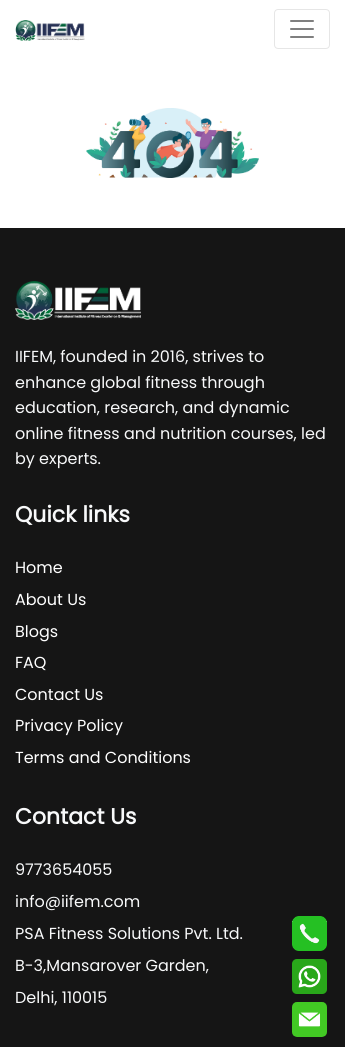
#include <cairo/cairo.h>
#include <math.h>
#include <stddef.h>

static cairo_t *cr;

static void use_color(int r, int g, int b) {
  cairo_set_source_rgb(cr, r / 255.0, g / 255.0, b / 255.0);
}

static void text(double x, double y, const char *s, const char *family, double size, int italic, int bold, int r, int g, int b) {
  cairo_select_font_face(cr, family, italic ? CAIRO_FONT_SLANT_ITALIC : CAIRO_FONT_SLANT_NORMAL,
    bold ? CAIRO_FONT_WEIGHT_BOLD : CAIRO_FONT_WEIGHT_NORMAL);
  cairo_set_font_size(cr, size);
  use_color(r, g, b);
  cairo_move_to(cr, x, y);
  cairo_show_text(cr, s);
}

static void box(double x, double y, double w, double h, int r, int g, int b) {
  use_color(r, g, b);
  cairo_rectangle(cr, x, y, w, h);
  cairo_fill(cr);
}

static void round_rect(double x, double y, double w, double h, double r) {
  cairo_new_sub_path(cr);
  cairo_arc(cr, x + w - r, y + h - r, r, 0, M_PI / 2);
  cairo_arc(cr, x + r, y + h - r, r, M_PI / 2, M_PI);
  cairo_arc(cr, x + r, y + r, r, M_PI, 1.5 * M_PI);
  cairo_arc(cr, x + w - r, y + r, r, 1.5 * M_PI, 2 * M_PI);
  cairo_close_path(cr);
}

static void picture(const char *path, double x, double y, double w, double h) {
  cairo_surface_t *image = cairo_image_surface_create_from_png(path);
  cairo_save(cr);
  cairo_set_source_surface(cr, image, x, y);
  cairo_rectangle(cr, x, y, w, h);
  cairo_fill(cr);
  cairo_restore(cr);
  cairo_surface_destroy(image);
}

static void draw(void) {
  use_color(255, 255, 255);
  cairo_paint(cr);
  picture("img_01.png", 15, 20, 70, 21);
  round_rect(274.5, 9.5, 55, 39, 3.5);
  use_color(230, 230, 230);
  cairo_set_line_width(cr, 1);
  cairo_stroke(cr);
  picture("img_02.png", 290, 20, 24, 18);
  picture("img_03.png", 86, 108, 173, 70);
  box(0, 228, 345, 819, 21, 21, 21);
  picture("img_04.png", 15, 281, 126, 39);
  box(292, 921, 35, 23, 248, 249, 250);
  picture("img_05.png", 292, 916, 35, 35);
  picture("img_06.png", 292, 959, 35, 35);
  picture("img_07.png", 292, 1002, 35, 35);
  text(15, 362, "IIFEM, founded in 2016, strives to", "Poppins", 16, 0, 0, 248, 249, 250);
  text(15, 388, "enhance global fitness through", "Poppins", 16, 0, 0, 248, 249, 250);
  text(15, 413, "education, research, and dynamic", "Poppins", 16, 0, 0, 248, 249, 250);
  text(15, 439, "online fitness and nutrition courses, led", "Poppins", 16, 0, 0, 248, 249, 250);
  text(15, 464, "by experts.", "Poppins", 16, 0, 0, 248, 249, 250);
  text(15, 522, "Quick links", "Poppins", 22, 0, 1, 248, 249, 250);
  text(15, 573, "Home", "Poppins", 16, 0, 0, 255, 255, 255);
  text(15, 605, "About Us", "Poppins", 16, 0, 0, 255, 255, 255);
  text(15, 637, "Blogs", "Poppins", 16, 0, 0, 255, 255, 255);
  text(15, 668, "FAQ", "Poppins", 16, 0, 0, 255, 255, 255);
  text(15, 700, "Contact Us", "Poppins", 16, 0, 0, 255, 255, 255);
  text(15, 731, "Privacy Policy", "Poppins", 16, 0, 0, 255, 255, 255);
  text(15, 763, "Terms and Conditions", "Poppins", 16, 0, 0, 255, 255, 255);
  text(15, 824, "Contact Us", "Poppins", 22, 0, 1, 248, 249, 250);
  text(15, 875, "9773654055", "Poppins", 16, 0, 0, 248, 249, 250);
  text(15, 907, "info@iifem.com", "Poppins", 16, 0, 0, 248, 249, 250);
  text(15, 939, "PSA Fitness Solutions Pvt. Ltd.", "Poppins", 16, 0, 0, 248, 249, 250);
  text(15, 971, "B-3,Mansarover Garden,", "Poppins", 16, 0, 0, 248, 249, 250);
  text(15, 1003, "Delhi, 110015", "Poppins", 16, 0, 0, 248, 249, 250);
}

int main(void) {
  cairo_surface_t *surface = cairo_image_surface_create(CAIRO_FORMAT_RGB24, 345, 1047);
  cr = cairo_create(surface);
  cairo_font_options_t *options = cairo_font_options_create();
  cairo_font_options_set_hint_metrics(options, CAIRO_HINT_METRICS_OFF);
  cairo_font_options_set_hint_style(options, CAIRO_HINT_STYLE_NONE);
  cairo_set_font_options(cr, options);
  cairo_set_miter_limit(cr, 4);
  draw();
  cairo_surface_write_to_png(surface, "out.png");
  cairo_font_options_destroy(options);
  cairo_destroy(cr);
  cairo_surface_destroy(surface);
  return 0;
}
